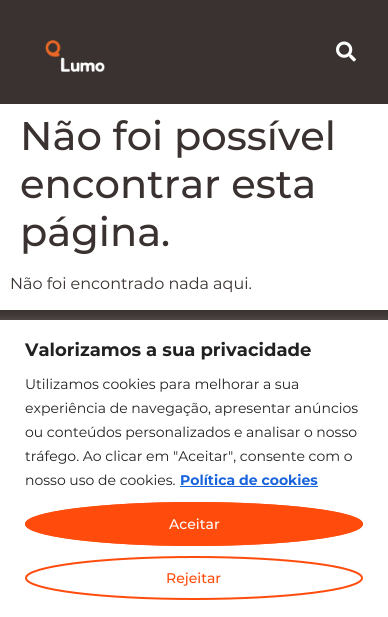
#include <cairo/cairo.h>
#include <math.h>
#include <stddef.h>

static cairo_t *cr;

static void use_color(int r, int g, int b) {
  cairo_set_source_rgb(cr, r / 255.0, g / 255.0, b / 255.0);
}

static void text(double x, double y, const char *s, const char *family, double size, int italic, int bold, int r, int g, int b) {
  cairo_select_font_face(cr, family, italic ? CAIRO_FONT_SLANT_ITALIC : CAIRO_FONT_SLANT_NORMAL,
    bold ? CAIRO_FONT_WEIGHT_BOLD : CAIRO_FONT_WEIGHT_NORMAL);
  cairo_set_font_size(cr, size);
  use_color(r, g, b);
  cairo_move_to(cr, x, y);
  cairo_show_text(cr, s);
}

static void box(double x, double y, double w, double h, int r, int g, int b) {
  use_color(r, g, b);
  cairo_rectangle(cr, x, y, w, h);
  cairo_fill(cr);
}

static void round_rect(double x, double y, double w, double h, double r) {
  cairo_new_sub_path(cr);
  cairo_arc(cr, x + w - r, y + h - r, r, 0, M_PI / 2);
  cairo_arc(cr, x + r, y + h - r, r, M_PI / 2, M_PI);
  cairo_arc(cr, x + r, y + r, r, M_PI, 1.5 * M_PI);
  cairo_arc(cr, x + w - r, y + r, r, 1.5 * M_PI, 2 * M_PI);
  cairo_close_path(cr);
}

static void shadow(double x, double y, double w, double h, double r, double blur, double alpha) {
  cairo_push_group_with_content(cr, CAIRO_CONTENT_ALPHA);
  cairo_set_operator(cr, CAIRO_OPERATOR_SOURCE);
  for (int i = 15; i >= -15 && fmin(w, h) + blur * i / 3 > 0; i -= 2) {
    double e = blur * i / 6;
    cairo_set_source_rgba(cr, 0, 0, 0, alpha * erfc((i - 1) / 8.5) / 2);
    round_rect(x - e, y - e, w + 2 * e, h + 2 * e, fmax(0, fmin(r + e + blur * .6, fmin(w, h) / 2 + e)));
    cairo_fill(cr);
  }
  cairo_pattern_t *soft = cairo_pop_group(cr);
  cairo_mask(cr, soft);
  cairo_pattern_destroy(soft);
}

static void picture(const char *path, double x, double y, double w, double h) {
  cairo_surface_t *image = cairo_image_surface_create_from_png(path);
  cairo_save(cr);
  cairo_set_source_surface(cr, image, x, y);
  cairo_rectangle(cr, x, y, w, h);
  cairo_fill(cr);
  cairo_restore(cr);
  cairo_surface_destroy(image);
}

static void draw(void) {
  use_color(255, 255, 255);
  cairo_paint(cr);
  box(0, 0, 388, 104, 57, 50, 48);
  picture("img_01.png", 45, 40, 60, 32);
  picture("img_02.png", 336, 41, 20, 21);
  box(0, 310, 388, 10, 57, 50, 48);
  use_color(172, 171, 171);
  shadow(0, 319, 388, 297, 0, 5, 0.3);
  box(0, 320, 388, 297, 255, 255, 255);
  box(180, 486, 138, 1, 24, 99, 220);
  use_color(255, 76, 13);
  cairo_new_path(cr);
  cairo_move_to(cr, 194, 502);
  cairo_curve_to(cr, 287.5, 502, 363, 512, 363, 524);
  cairo_curve_to(cr, 363, 536, 287.5, 546, 194, 546);
  cairo_curve_to(cr, 100.5, 546, 25, 536, 25, 524);
  cairo_curve_to(cr, 25, 512, 100.5, 502, 194, 502);
  cairo_close_path(cr);
  cairo_fill(cr);
  cairo_new_path(cr);
  cairo_move_to(cr, 194, 503);
  cairo_curve_to(cr, 287, 503, 362, 512.5, 362, 524);
  cairo_curve_to(cr, 362, 535.5, 287, 545, 194, 545);
  cairo_curve_to(cr, 101, 545, 26, 535.5, 26, 524);
  cairo_curve_to(cr, 26, 512.5, 101, 503, 194, 503);
  cairo_close_path(cr);
  cairo_stroke(cr);
  cairo_new_path(cr);
  cairo_move_to(cr, 194, 557);
  cairo_curve_to(cr, 287, 557, 362, 566.5, 362, 578);
  cairo_curve_to(cr, 362, 589.5, 287, 599, 194, 599);
  cairo_curve_to(cr, 101, 599, 26, 589.5, 26, 578);
  cairo_curve_to(cr, 26, 566.5, 101, 557, 194, 557);
  cairo_close_path(cr);
  cairo_stroke(cr);
  text(20, 150, "Não foi possível", "Montserrat Medium", 40, 0, 0, 57, 50, 48);
  text(20, 198, "encontrar esta", "Montserrat Medium", 40, 0, 0, 57, 50, 48);
  text(20, 246, "página.", "Montserrat Medium", 40, 0, 0, 57, 50, 48);
  text(10, 289, "Não foi encontrado nada aqui.", "Montserrat", 16, 0, 0, 57, 50, 48);
  text(25, 356, "Valorizamos a sua privacidade", "Montserrat", 18, 0, 1, 33, 33, 33);
  text(25, 389, "Utilizamos cookies para melhorar a sua", "Montserrat", 14, 0, 0, 33, 33, 33);
  text(25, 413, "experiência de navegação, apresentar anúncios", "Montserrat", 14, 0, 0, 33, 33, 33);
  text(25, 437, "ou conteúdos personalizados e analisar o nosso", "Montserrat", 14, 0, 0, 33, 33, 33);
  text(25, 461, "tráfego. Ao clicar em \"Aceitar\", consente com o", "Montserrat", 14, 0, 0, 33, 33, 33);
  text(25, 485, "nosso uso de cookies.", "Montserrat", 14, 0, 0, 33, 33, 33);
  text(180, 485, "Política de cookies", "Montserrat", 14, 0, 1, 24, 99, 220);
  text(169, 529, "Aceitar", "Montserrat Medium", 14, 0, 0, 255, 255, 255);
  text(166, 583, "Rejeitar", "Montserrat Medium", 14, 0, 0, 255, 76, 13);
}

int main(void) {
  cairo_surface_t *surface = cairo_image_surface_create(CAIRO_FORMAT_RGB24, 388, 617);
  cr = cairo_create(surface);
  cairo_font_options_t *options = cairo_font_options_create();
  cairo_font_options_set_hint_metrics(options, CAIRO_HINT_METRICS_OFF);
  cairo_font_options_set_hint_style(options, CAIRO_HINT_STYLE_NONE);
  cairo_set_font_options(cr, options);
  cairo_set_miter_limit(cr, 4);
  draw();
  cairo_surface_write_to_png(surface, "out.png");
  cairo_font_options_destroy(options);
  cairo_destroy(cr);
  cairo_surface_destroy(surface);
  return 0;
}
